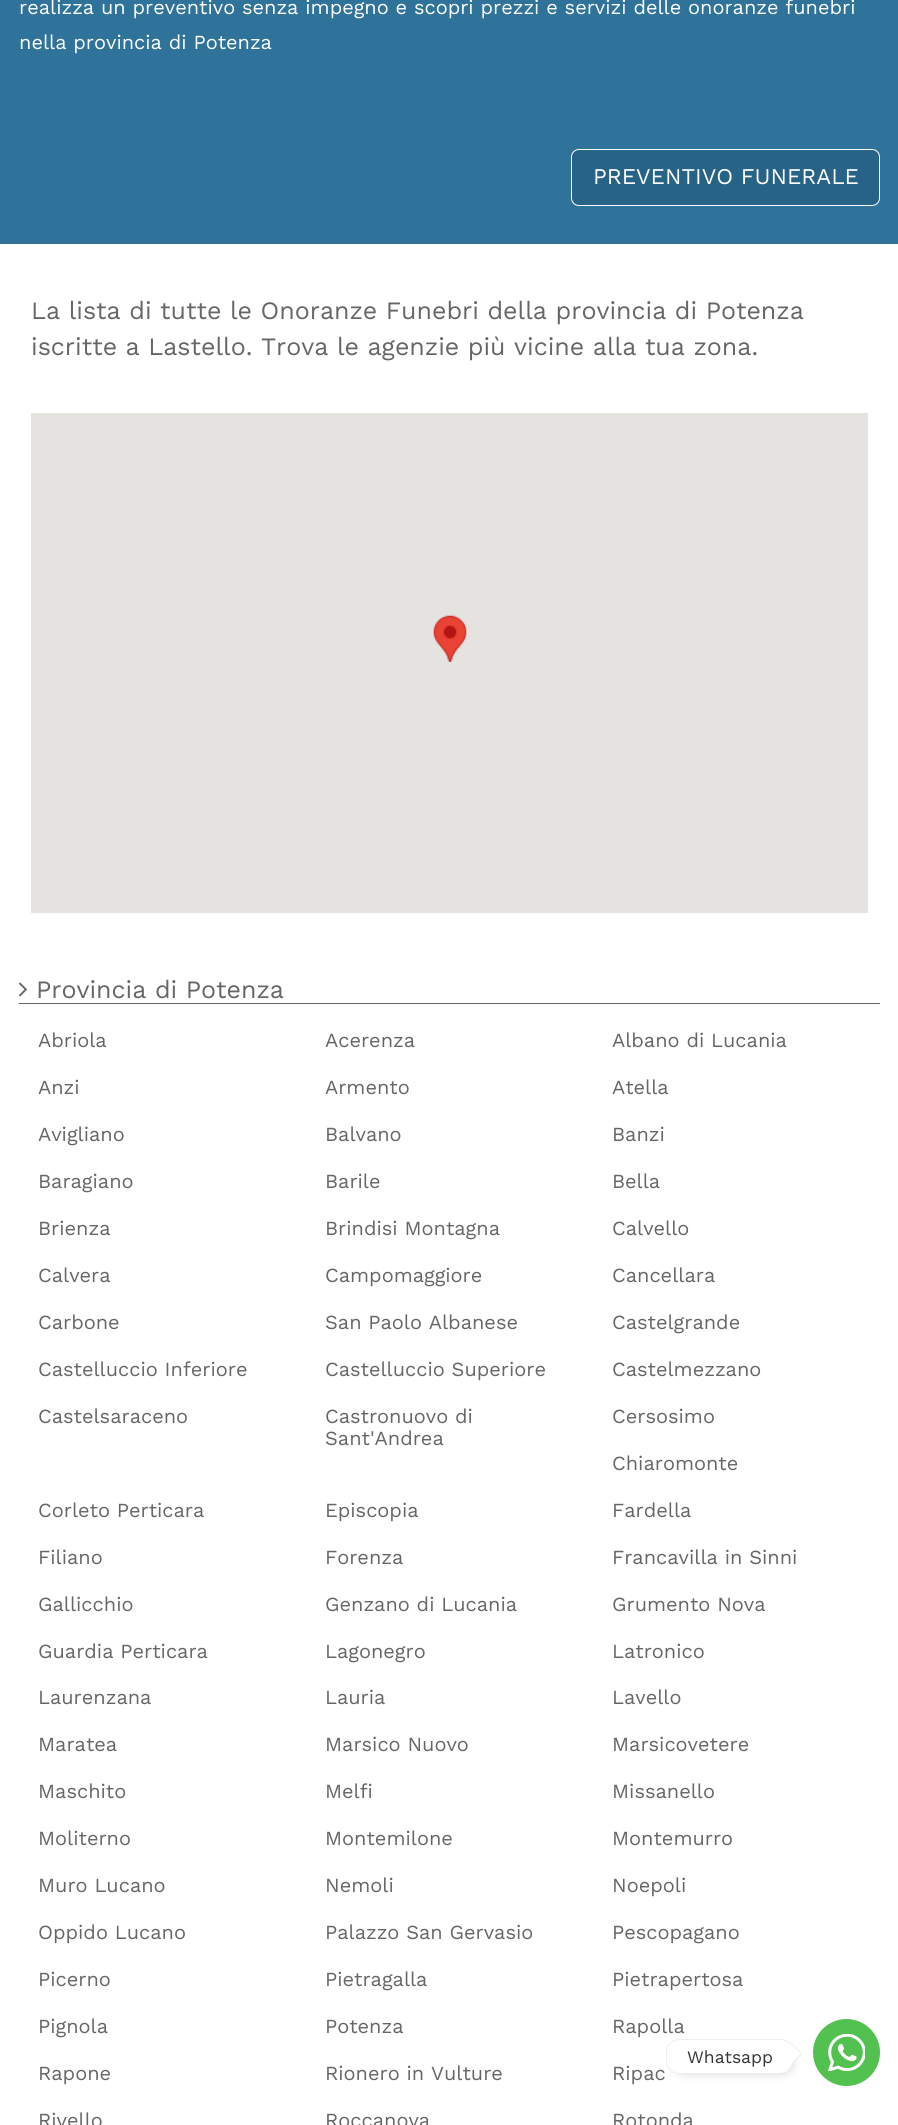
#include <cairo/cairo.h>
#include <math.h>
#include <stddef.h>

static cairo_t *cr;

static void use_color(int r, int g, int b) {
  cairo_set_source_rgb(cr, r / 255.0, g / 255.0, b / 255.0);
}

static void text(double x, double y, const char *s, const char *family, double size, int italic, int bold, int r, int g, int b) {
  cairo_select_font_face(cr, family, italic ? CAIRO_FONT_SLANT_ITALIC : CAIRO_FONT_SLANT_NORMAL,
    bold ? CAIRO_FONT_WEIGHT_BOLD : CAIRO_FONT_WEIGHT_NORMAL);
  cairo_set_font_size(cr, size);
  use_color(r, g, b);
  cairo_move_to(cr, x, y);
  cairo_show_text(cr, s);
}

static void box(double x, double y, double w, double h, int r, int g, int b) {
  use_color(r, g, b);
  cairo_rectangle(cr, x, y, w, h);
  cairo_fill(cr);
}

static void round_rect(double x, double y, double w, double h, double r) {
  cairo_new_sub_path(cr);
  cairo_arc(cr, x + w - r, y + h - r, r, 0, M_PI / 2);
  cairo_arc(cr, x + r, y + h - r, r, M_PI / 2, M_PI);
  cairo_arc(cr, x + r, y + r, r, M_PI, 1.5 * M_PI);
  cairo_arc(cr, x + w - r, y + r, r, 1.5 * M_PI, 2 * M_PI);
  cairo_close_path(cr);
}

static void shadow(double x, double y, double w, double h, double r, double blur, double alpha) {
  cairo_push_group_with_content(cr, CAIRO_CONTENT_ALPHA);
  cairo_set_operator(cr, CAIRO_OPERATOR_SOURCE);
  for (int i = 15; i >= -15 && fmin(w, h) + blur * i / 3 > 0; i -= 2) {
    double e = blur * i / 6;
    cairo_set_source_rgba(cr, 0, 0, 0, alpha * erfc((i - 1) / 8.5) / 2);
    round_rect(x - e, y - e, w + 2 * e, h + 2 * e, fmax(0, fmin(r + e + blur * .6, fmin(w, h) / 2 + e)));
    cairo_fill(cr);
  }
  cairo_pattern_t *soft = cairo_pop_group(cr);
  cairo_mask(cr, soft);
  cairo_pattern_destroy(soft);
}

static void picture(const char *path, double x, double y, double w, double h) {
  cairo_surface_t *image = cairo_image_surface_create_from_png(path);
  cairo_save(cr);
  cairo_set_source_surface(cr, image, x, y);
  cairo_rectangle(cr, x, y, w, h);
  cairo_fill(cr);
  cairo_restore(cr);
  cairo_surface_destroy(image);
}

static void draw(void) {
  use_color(255, 255, 255);
  cairo_paint(cr);
  box(0, 0, 898, 244, 47, 115, 154);
  use_color(39, 99, 134);
  round_rect(571.5, 149.5, 308, 56, 7.5);
  cairo_fill_preserve(cr);
  use_color(255, 255, 255);
  cairo_set_line_width(cr, 1);
  cairo_stroke(cr);
  box(31, 413, 837, 500, 229, 227, 223);
  picture("img_01.png", 433, 615, 34, 47);
  box(19, 1003, 861, 1, 102, 102, 102);
  picture("img_02.png", 19, 982, 8, 15);
  use_color(83, 193, 79);
  cairo_arc(cr, 846.5, 2052.5, 33.5, 0, 2 * M_PI);
  cairo_fill(cr);
  use_color(0, 0, 0);
  shadow(678, 2050, 111, 20, 5, 6, 0.3);
  use_color(255, 255, 255);
  round_rect(666.5, 2039.5, 126, 34, 12.5);
  cairo_fill_preserve(cr);
  use_color(238, 238, 238);
  cairo_stroke(cr);
  cairo_new_path(cr);
  cairo_move_to(cr, 793.5, 2045);
  cairo_line_to(cr, 799.5, 2051);
  cairo_curve_to(cr, 803, 2054.5, 800.5, 2055.5, 797, 2059);
  cairo_curve_to(cr, 795.5, 2060.5, 793.5, 2064, 791, 2063);
  cairo_line_to(cr, 795.5, 2059);
  cairo_curve_to(cr, 800, 2054.5, 801.5, 2054.5, 796.5, 2049.5);
  cairo_line_to(cr, 791, 2044.5);
  cairo_curve_to(cr, 792, 2044, 793, 2044.5, 793.5, 2045);
  cairo_close_path(cr);
  cairo_fill(cr);
  use_color(255, 255, 255);
  cairo_new_path(cr);
  cairo_move_to(cr, 792, 2045);
  cairo_line_to(cr, 799, 2052);
  cairo_curve_to(cr, 800, 2053, 800, 2054.5, 799, 2055.5);
  cairo_line_to(cr, 792, 2062.5);
  cairo_curve_to(cr, 791, 2063.5, 789, 2063.5, 788, 2062.5);
  cairo_curve_to(cr, 783.5, 2057.5, 783.5, 2050, 788, 2045);
  cairo_curve_to(cr, 789, 2044, 791, 2044, 792, 2045);
  cairo_close_path(cr);
  cairo_fill(cr);
  picture("img_03.png", 828, 2034, 37, 37);
  text(19, 14, "realizza un preventivo senza impegno e scopri prezzi e servizi delle onoranze funebri", "Work Sans", 20, 0, 0, 255, 255, 255);
  text(19, 49, "nella provincia di Potenza", "Work Sans", 20, 0, 0, 255, 255, 255);
  text(593, 184, "PREVENTIVO FUNERALE", "Work Sans", 22.5, 0, 0, 255, 255, 255);
  text(31, 319, "La lista di tutte le Onoranze Funebri della provincia di Potenza", "Work Sans", 25, 0, 0, 102, 102, 102);
  text(31, 355, "iscritte a Lastello. Trova le agenzie più vicine alla tua zona.", "Work Sans", 25, 0, 0, 102, 102, 102);
  text(36, 998, "Provincia di Potenza", "Work Sans", 25, 0, 0, 102, 102, 102);
  text(38, 1047, "Abriola", "Work Sans", 20, 0, 0, 102, 102, 102);
  text(325, 1047, "Acerenza", "Work Sans", 20, 0, 0, 102, 102, 102);
  text(612, 1047, "Albano di Lucania", "Work Sans", 20, 0, 0, 102, 102, 102);
  text(38, 1094, "Anzi", "Work Sans", 20, 0, 0, 102, 102, 102);
  text(325, 1094, "Armento", "Work Sans", 20, 0, 0, 102, 102, 102);
  text(612, 1094, "Atella", "Work Sans", 20, 0, 0, 102, 102, 102);
  text(38, 1141, "Avigliano", "Work Sans", 20, 0, 0, 102, 102, 102);
  text(325, 1141, "Balvano", "Work Sans", 20, 0, 0, 102, 102, 102);
  text(612, 1141, "Banzi", "Work Sans", 20, 0, 0, 102, 102, 102);
  text(38, 1188, "Baragiano", "Work Sans", 20, 0, 0, 102, 102, 102);
  text(325, 1188, "Barile", "Work Sans", 20, 0, 0, 102, 102, 102);
  text(612, 1188, "Bella", "Work Sans", 20, 0, 0, 102, 102, 102);
  text(38, 1235, "Brienza", "Work Sans", 20, 0, 0, 102, 102, 102);
  text(325, 1235, "Brindisi Montagna", "Work Sans", 20, 0, 0, 102, 102, 102);
  text(612, 1235, "Calvello", "Work Sans", 20, 0, 0, 102, 102, 102);
  text(38, 1282, "Calvera", "Work Sans", 20, 0, 0, 102, 102, 102);
  text(325, 1282, "Campomaggiore", "Work Sans", 20, 0, 0, 102, 102, 102);
  text(612, 1282, "Cancellara", "Work Sans", 20, 0, 0, 102, 102, 102);
  text(38, 1329, "Carbone", "Work Sans", 20, 0, 0, 102, 102, 102);
  text(325, 1329, "San Paolo Albanese", "Work Sans", 20, 0, 0, 102, 102, 102);
  text(612, 1329, "Castelgrande", "Work Sans", 20, 0, 0, 102, 102, 102);
  text(38, 1376, "Castelluccio Inferiore", "Work Sans", 20, 0, 0, 102, 102, 102);
  text(325, 1376, "Castelluccio Superiore", "Work Sans", 20, 0, 0, 102, 102, 102);
  text(612, 1376, "Castelmezzano", "Work Sans", 20, 0, 0, 102, 102, 102);
  text(38, 1423, "Castelsaraceno", "Work Sans", 20, 0, 0, 102, 102, 102);
  text(325, 1423, "Castronuovo di", "Work Sans", 20, 0, 0, 102, 102, 102);
  text(325, 1445, "Sant'Andrea", "Work Sans", 20, 0, 0, 102, 102, 102);
  text(612, 1423, "Cersosimo", "Work Sans", 20, 0, 0, 102, 102, 102);
  text(612, 1470, "Chiaromonte", "Work Sans", 20, 0, 0, 102, 102, 102);
  text(38, 1517, "Corleto Perticara", "Work Sans", 20, 0, 0, 102, 102, 102);
  text(325, 1517, "Episcopia", "Work Sans", 20, 0, 0, 102, 102, 102);
  text(612, 1517, "Fardella", "Work Sans", 20, 0, 0, 102, 102, 102);
  text(38, 1564, "Filiano", "Work Sans", 20, 0, 0, 102, 102, 102);
  text(325, 1564, "Forenza", "Work Sans", 20, 0, 0, 102, 102, 102);
  text(612, 1564, "Francavilla in Sinni", "Work Sans", 20, 0, 0, 102, 102, 102);
  text(38, 1611, "Gallicchio", "Work Sans", 20, 0, 0, 102, 102, 102);
  text(325, 1611, "Genzano di Lucania", "Work Sans", 20, 0, 0, 102, 102, 102);
  text(612, 1611, "Grumento Nova", "Work Sans", 20, 0, 0, 102, 102, 102);
  text(38, 1658, "Guardia Perticara", "Work Sans", 20, 0, 0, 102, 102, 102);
  text(325, 1658, "Lagonegro", "Work Sans", 20, 0, 0, 102, 102, 102);
  text(612, 1658, "Latronico", "Work Sans", 20, 0, 0, 102, 102, 102);
  text(38, 1704, "Laurenzana", "Work Sans", 20, 0, 0, 102, 102, 102);
  text(325, 1704, "Lauria", "Work Sans", 20, 0, 0, 102, 102, 102);
  text(612, 1704, "Lavello", "Work Sans", 20, 0, 0, 102, 102, 102);
  text(38, 1751, "Maratea", "Work Sans", 20, 0, 0, 102, 102, 102);
  text(325, 1751, "Marsico Nuovo", "Work Sans", 20, 0, 0, 102, 102, 102);
  text(612, 1751, "Marsicovetere", "Work Sans", 20, 0, 0, 102, 102, 102);
  text(38, 1798, "Maschito", "Work Sans", 20, 0, 0, 102, 102, 102);
  text(325, 1798, "Melfi", "Work Sans", 20, 0, 0, 102, 102, 102);
  text(612, 1798, "Missanello", "Work Sans", 20, 0, 0, 102, 102, 102);
  text(38, 1845, "Moliterno", "Work Sans", 20, 0, 0, 102, 102, 102);
  text(325, 1845, "Montemilone", "Work Sans", 20, 0, 0, 102, 102, 102);
  text(612, 1845, "Montemurro", "Work Sans", 20, 0, 0, 102, 102, 102);
  text(38, 1892, "Muro Lucano", "Work Sans", 20, 0, 0, 102, 102, 102);
  text(325, 1892, "Nemoli", "Work Sans", 20, 0, 0, 102, 102, 102);
  text(612, 1892, "Noepoli", "Work Sans", 20, 0, 0, 102, 102, 102);
  text(38, 1939, "Oppido Lucano", "Work Sans", 20, 0, 0, 102, 102, 102);
  text(325, 1939, "Palazzo San Gervasio", "Work Sans", 20, 0, 0, 102, 102, 102);
  text(612, 1939, "Pescopagano", "Work Sans", 20, 0, 0, 102, 102, 102);
  text(38, 1986, "Picerno", "Work Sans", 20, 0, 0, 102, 102, 102);
  text(325, 1986, "Pietragalla", "Work Sans", 20, 0, 0, 102, 102, 102);
  text(612, 1986, "Pietrapertosa", "Work Sans", 20, 0, 0, 102, 102, 102);
  text(38, 2033, "Pignola", "Work Sans", 20, 0, 0, 102, 102, 102);
  text(325, 2033, "Potenza", "Work Sans", 20, 0, 0, 102, 102, 102);
  text(612, 2033, "Rapolla", "Work Sans", 20, 0, 0, 102, 102, 102);
  text(38, 2080, "Rapone", "Work Sans", 20, 0, 0, 102, 102, 102);
  text(325, 2080, "Rionero in Vulture", "Work Sans", 20, 0, 0, 102, 102, 102);
  text(612, 2080, "Ripac", "Work Sans", 20, 0, 0, 102, 102, 102);
  text(38, 2127, "Rivello", "Work Sans", 20, 0, 0, 102, 102, 102);
  text(325, 2127, "Roccanova", "Work Sans", 20, 0, 0, 102, 102, 102);
  text(612, 2127, "Rotonda", "Work Sans", 20, 0, 0, 102, 102, 102);
  text(687, 2063, "Whatsapp", "Work Sans", 17.5, 0, 0, 51, 51, 51);
}

int main(void) {
  cairo_surface_t *surface = cairo_image_surface_create(CAIRO_FORMAT_RGB24, 898, 2125);
  cr = cairo_create(surface);
  cairo_font_options_t *options = cairo_font_options_create();
  cairo_font_options_set_hint_metrics(options, CAIRO_HINT_METRICS_OFF);
  cairo_font_options_set_hint_style(options, CAIRO_HINT_STYLE_NONE);
  cairo_set_font_options(cr, options);
  cairo_set_miter_limit(cr, 4);
  draw();
  cairo_surface_write_to_png(surface, "out.png");
  cairo_font_options_destroy(options);
  cairo_destroy(cr);
  cairo_surface_destroy(surface);
  return 0;
}
